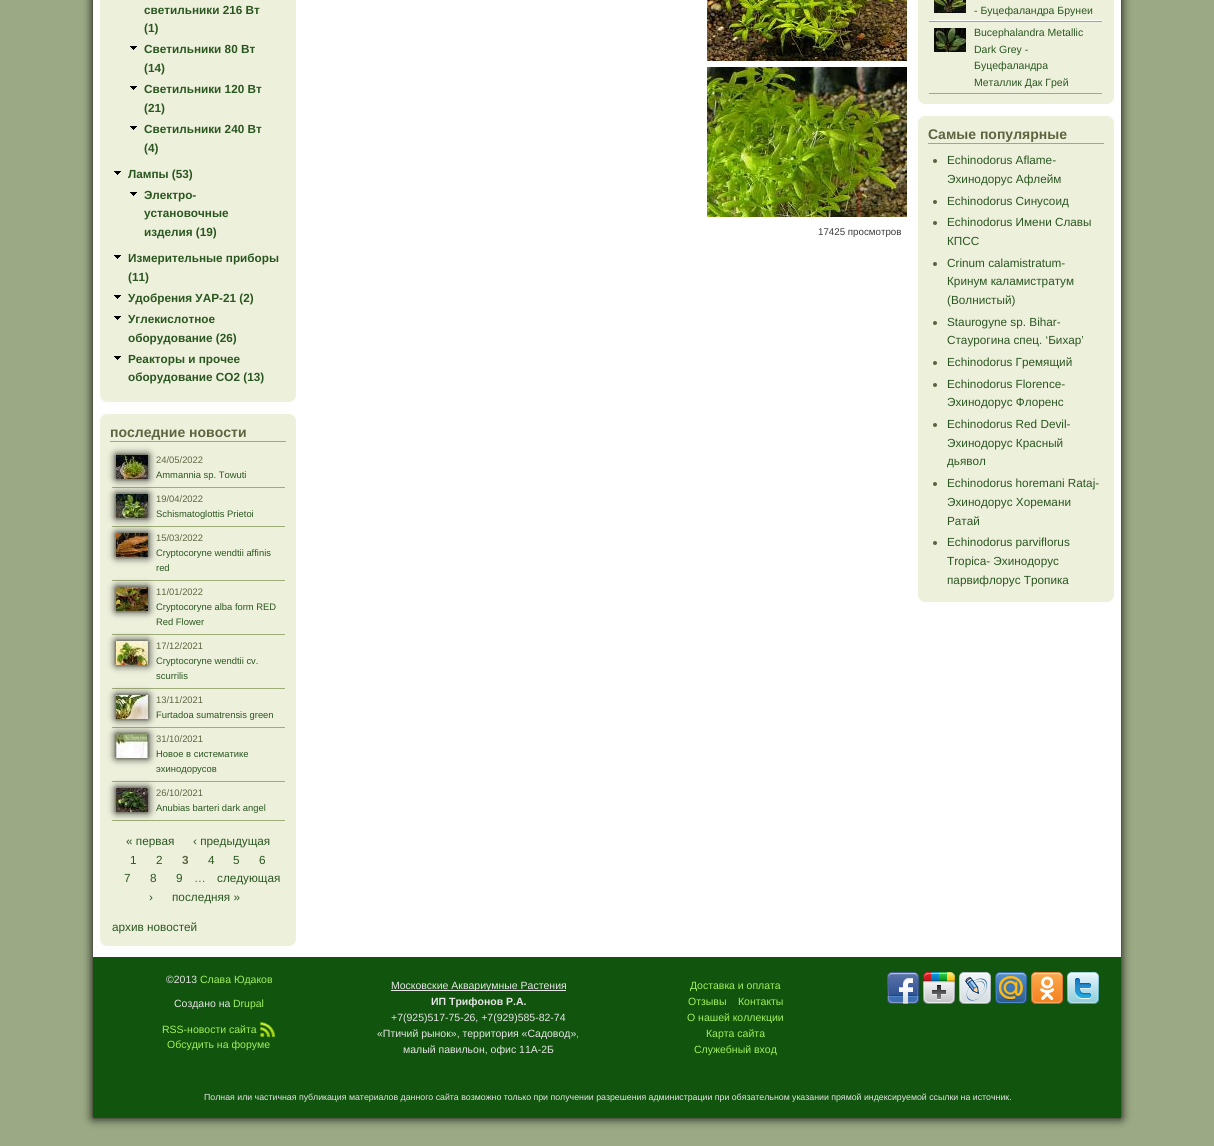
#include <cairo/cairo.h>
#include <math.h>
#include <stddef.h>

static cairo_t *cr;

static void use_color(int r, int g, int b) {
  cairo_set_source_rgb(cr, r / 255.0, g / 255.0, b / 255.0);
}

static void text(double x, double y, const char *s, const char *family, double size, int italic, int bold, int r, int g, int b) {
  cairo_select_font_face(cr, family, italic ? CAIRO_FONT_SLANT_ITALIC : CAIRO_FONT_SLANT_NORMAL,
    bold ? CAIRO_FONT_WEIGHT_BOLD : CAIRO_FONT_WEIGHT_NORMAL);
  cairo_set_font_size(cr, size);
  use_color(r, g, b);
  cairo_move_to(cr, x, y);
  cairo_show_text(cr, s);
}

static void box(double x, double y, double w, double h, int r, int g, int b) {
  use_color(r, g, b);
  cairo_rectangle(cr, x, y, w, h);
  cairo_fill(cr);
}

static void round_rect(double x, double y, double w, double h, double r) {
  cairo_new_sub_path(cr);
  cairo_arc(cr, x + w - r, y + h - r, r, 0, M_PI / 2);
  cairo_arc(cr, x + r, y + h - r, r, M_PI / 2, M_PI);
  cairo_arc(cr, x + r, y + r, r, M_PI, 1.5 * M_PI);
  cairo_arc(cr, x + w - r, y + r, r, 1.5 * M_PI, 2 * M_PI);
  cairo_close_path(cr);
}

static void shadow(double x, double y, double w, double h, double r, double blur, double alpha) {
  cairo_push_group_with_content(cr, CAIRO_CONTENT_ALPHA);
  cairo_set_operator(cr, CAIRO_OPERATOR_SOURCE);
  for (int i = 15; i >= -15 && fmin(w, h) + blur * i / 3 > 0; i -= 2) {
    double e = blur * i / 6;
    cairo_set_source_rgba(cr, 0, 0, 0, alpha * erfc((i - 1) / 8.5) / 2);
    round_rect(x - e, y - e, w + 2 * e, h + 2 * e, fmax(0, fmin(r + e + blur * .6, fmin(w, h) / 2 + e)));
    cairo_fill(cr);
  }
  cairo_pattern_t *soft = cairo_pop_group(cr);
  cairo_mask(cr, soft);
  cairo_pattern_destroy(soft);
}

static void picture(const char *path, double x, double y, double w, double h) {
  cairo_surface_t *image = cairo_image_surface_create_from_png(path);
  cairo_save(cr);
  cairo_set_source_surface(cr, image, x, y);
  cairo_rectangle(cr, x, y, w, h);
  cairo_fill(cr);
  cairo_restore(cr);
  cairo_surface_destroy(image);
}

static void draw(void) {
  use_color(155, 169, 132);
  cairo_paint(cr);
  use_color(0, 0, 0);
  shadow(93, -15, 1028, 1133, 0, 5, 1);
  box(93, 0, 1028, 957, 255, 255, 255);
  use_color(237, 240, 219);
  round_rect(99.5, -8.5, 197, 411, 7.5);
  cairo_fill_preserve(cr);
  use_color(255, 255, 255);
  cairo_set_line_width(cr, 1);
  cairo_stroke(cr);
  picture("img_01.png", 130, 46, 7, 4);
  picture("img_01.png", 130, 86, 7, 4);
  picture("img_01.png", 130, 126, 7, 4);
  picture("img_01.png", 114, 171, 7, 4);
  picture("img_01.png", 130, 192, 7, 4);
  picture("img_01.png", 114, 255, 7, 4);
  picture("img_01.png", 114, 295, 7, 4);
  picture("img_01.png", 114, 316, 7, 4);
  picture("img_01.png", 114, 356, 7, 4);
  use_color(237, 240, 219);
  round_rect(99.5, 413.5, 197, 533, 7.5);
  cairo_fill_preserve(cr);
  use_color(255, 255, 255);
  cairo_stroke(cr);
  box(110, 441, 176, 1, 158, 172, 119);
  box(112, 487, 173, 1, 158, 172, 119);
  use_color(0, 0, 0);
  shadow(116, 455, 32, 24, 0, 4, 1);
  picture("img_02.png", 116, 455, 32, 24);
  box(112, 526, 173, 1, 158, 172, 119);
  use_color(0, 0, 0);
  shadow(116, 494, 32, 24, 0, 4, 1);
  picture("img_03.png", 116, 494, 32, 24);
  box(112, 580, 173, 1, 158, 172, 119);
  use_color(0, 0, 0);
  shadow(116, 533, 32, 24, 0, 4, 1);
  picture("img_04.png", 116, 533, 32, 24);
  box(112, 634, 173, 1, 158, 172, 119);
  use_color(0, 0, 0);
  shadow(116, 587, 32, 24, 0, 4, 1);
  picture("img_05.png", 116, 587, 32, 24);
  box(112, 688, 173, 1, 158, 172, 119);
  use_color(0, 0, 0);
  shadow(116, 641, 32, 24, 0, 4, 1);
  picture("img_06.png", 116, 641, 32, 24);
  box(112, 727, 173, 1, 158, 172, 119);
  use_color(0, 0, 0);
  shadow(116, 695, 32, 24, 0, 4, 1);
  picture("img_07.png", 116, 695, 32, 24);
  box(112, 781, 173, 1, 158, 172, 119);
  use_color(0, 0, 0);
  shadow(116, 734, 32, 24, 0, 4, 1);
  picture("img_08.png", 116, 734, 32, 24);
  box(112, 820, 173, 1, 158, 172, 119);
  use_color(0, 0, 0);
  shadow(116, 788, 32, 24, 0, 4, 1);
  picture("img_09.png", 116, 788, 32, 24);
  picture("img_10.png", 707, 0, 200, 61);
  picture("img_11.png", 707, 67, 200, 150);
  use_color(237, 240, 219);
  round_rect(917.5, -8.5, 197, 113, 7.5);
  cairo_fill_preserve(cr);
  use_color(255, 255, 255);
  cairo_stroke(cr);
  box(930, 20, 172, 1, 255, 255, 255);
  picture("img_12.png", 934, 0, 32, 13);
  box(929, 21, 173, 1, 158, 172, 119);
  picture("img_13.png", 934, 28, 32, 24);
  box(929, 93, 173, 1, 158, 172, 119);
  use_color(237, 240, 219);
  round_rect(917.5, 115.5, 197, 487, 7.5);
  cairo_fill_preserve(cr);
  use_color(255, 255, 255);
  cairo_stroke(cr);
  box(928, 143, 176, 1, 158, 172, 119);
  use_color(94, 100, 64);
  cairo_arc(cr, 935, 161, 2, 0, 2 * M_PI);
  cairo_fill(cr);
  cairo_arc(cr, 935, 202, 2, 0, 2 * M_PI);
  cairo_fill(cr);
  cairo_arc(cr, 935, 223, 2, 0, 2 * M_PI);
  cairo_fill(cr);
  cairo_arc(cr, 935, 264, 2, 0, 2 * M_PI);
  cairo_fill(cr);
  cairo_arc(cr, 935, 323, 2, 0, 2 * M_PI);
  cairo_fill(cr);
  cairo_arc(cr, 935, 363, 2, 0, 2 * M_PI);
  cairo_fill(cr);
  cairo_arc(cr, 935, 385, 2, 0, 2 * M_PI);
  cairo_fill(cr);
  cairo_arc(cr, 935, 425, 2, 0, 2 * M_PI);
  cairo_fill(cr);
  cairo_arc(cr, 935, 484, 2, 0, 2 * M_PI);
  cairo_fill(cr);
  cairo_arc(cr, 935, 543, 2, 0, 2 * M_PI);
  cairo_fill(cr);
  box(93, 957, 1028, 161, 17, 84, 13);
  picture("img_14.png", 260, 1022, 15, 15);
  box(391, 990, 175, 1, 230, 230, 230);
  picture("img_15.png", 887, 972, 32, 32);
  picture("img_16.png", 923, 972, 32, 32);
  picture("img_17.png", 959, 972, 32, 32);
  picture("img_18.png", 995, 972, 32, 32);
  picture("img_19.png", 1031, 972, 32, 32);
  picture("img_20.png", 1067, 972, 32, 32);
  text(144, 14, "светильники 216 Вт", "Liberation Sans", 11.75, 0, 1, 42, 86, 32);
  text(144, 32, "(1)", "Liberation Sans", 11.75, 0, 1, 42, 86, 32);
  text(144, 53, "Светильники 80 Вт", "Liberation Sans", 11.75, 0, 1, 42, 86, 32);
  text(144, 72, "(14)", "Liberation Sans", 11.75, 0, 1, 42, 86, 32);
  text(144, 93, "Светильники 120 Вт", "Liberation Sans", 11.75, 0, 1, 42, 86, 32);
  text(144, 112, "(21)", "Liberation Sans", 11.75, 0, 1, 42, 86, 32);
  text(144, 133, "Светильники 240 Вт", "Liberation Sans", 11.75, 0, 1, 42, 86, 32);
  text(144, 152, "(4)", "Liberation Sans", 11.75, 0, 1, 42, 86, 32);
  text(128, 178, "Лампы (53)", "Liberation Sans", 11.75, 0, 1, 42, 86, 32);
  text(144, 199, "Электро-", "Liberation Sans", 11.75, 0, 1, 42, 86, 32);
  text(144, 217, "установочные", "Liberation Sans", 11.75, 0, 1, 42, 86, 32);
  text(144, 236, "изделия (19)", "Liberation Sans", 11.75, 0, 1, 42, 86, 32);
  text(128, 262, "Измерительные приборы", "Liberation Sans", 11.75, 0, 1, 42, 86, 32);
  text(128, 281, "(11)", "Liberation Sans", 11.75, 0, 1, 42, 86, 32);
  text(128, 302, "Удобрения УАР-21 (2)", "Liberation Sans", 11.75, 0, 1, 42, 86, 32);
  text(128, 323, "Углекислотное", "Liberation Sans", 11.75, 0, 1, 42, 86, 32);
  text(128, 342, "оборудование (26)", "Liberation Sans", 11.75, 0, 1, 42, 86, 32);
  text(128, 363, "Реакторы и прочее", "Liberation Sans", 11.75, 0, 1, 42, 86, 32);
  text(128, 381, "оборудование СО2 (13)", "Liberation Sans", 11.75, 0, 1, 42, 86, 32);
  text(110, 437, "последние новости", "Liberation Sans", 14, 0, 1, 94, 100, 64);
  text(156, 463, "24/05/2022", "Liberation Sans", 9.4, 0, 0, 94, 100, 64);
  text(156, 478, "Ammannia sp. Towuti", "Liberation Sans", 9.4, 0, 0, 42, 86, 32);
  text(156, 502, "19/04/2022", "Liberation Sans", 9.4, 0, 0, 94, 100, 64);
  text(156, 517, "Schismatoglottis Prietoi", "Liberation Sans", 9.4, 0, 0, 42, 86, 32);
  text(156, 541, "15/03/2022", "Liberation Sans", 9.4, 0, 0, 94, 100, 64);
  text(156, 556, "Cryptocoryne wendtii affinis", "Liberation Sans", 9.4, 0, 0, 42, 86, 32);
  text(156, 571, "red", "Liberation Sans", 9.4, 0, 0, 42, 86, 32);
  text(156, 595, "11/01/2022", "Liberation Sans", 9.4, 0, 0, 94, 100, 64);
  text(156, 610, "Cryptocoryne alba form RED", "Liberation Sans", 9.4, 0, 0, 42, 86, 32);
  text(156, 625, "Red Flower", "Liberation Sans", 9.4, 0, 0, 42, 86, 32);
  text(156, 649, "17/12/2021", "Liberation Sans", 9.4, 0, 0, 94, 100, 64);
  text(156, 664, "Cryptocoryne wendtii cv.", "Liberation Sans", 9.4, 0, 0, 42, 86, 32);
  text(156, 679, "scurrilis", "Liberation Sans", 9.4, 0, 0, 42, 86, 32);
  text(156, 703, "13/11/2021", "Liberation Sans", 9.4, 0, 0, 94, 100, 64);
  text(156, 718, "Furtadoa sumatrensis green", "Liberation Sans", 9.4, 0, 0, 42, 86, 32);
  text(156, 742, "31/10/2021", "Liberation Sans", 9.4, 0, 0, 94, 100, 64);
  text(156, 757, "Новое в систематике", "Liberation Sans", 9.4, 0, 0, 42, 86, 32);
  text(156, 772, "эхинодорусов", "Liberation Sans", 9.4, 0, 0, 42, 86, 32);
  text(156, 796, "26/10/2021", "Liberation Sans", 9.4, 0, 0, 94, 100, 64);
  text(156, 811, "Anubias barteri dark angel", "Liberation Sans", 9.4, 0, 0, 42, 86, 32);
  text(126, 845, "« первая", "Liberation Sans", 11.75, 0, 0, 42, 86, 32);
  text(193, 845, "‹ предыдущая", "Liberation Sans", 11.75, 0, 0, 42, 86, 32);
  text(130, 864, "1", "Liberation Sans", 11.75, 0, 0, 42, 86, 32);
  text(156, 864, "2", "Liberation Sans", 11.75, 0, 0, 42, 86, 32);
  text(182, 864, "3", "Liberation Sans", 11.75, 0, 1, 94, 100, 64);
  text(208, 864, "4", "Liberation Sans", 11.75, 0, 0, 42, 86, 32);
  text(233, 864, "5", "Liberation Sans", 11.75, 0, 0, 42, 86, 32);
  text(259, 864, "6", "Liberation Sans", 11.75, 0, 0, 42, 86, 32);
  text(124, 882, "7", "Liberation Sans", 11.75, 0, 0, 42, 86, 32);
  text(150, 882, "8", "Liberation Sans", 11.75, 0, 0, 42, 86, 32);
  text(176, 882, "9", "Liberation Sans", 11.75, 0, 0, 42, 86, 32);
  text(194, 882, "…", "Liberation Sans", 11.75, 0, 0, 94, 100, 64);
  text(217, 882, "следующая", "Liberation Sans", 11.75, 0, 0, 42, 86, 32);
  text(149, 901, "›", "Liberation Sans", 11.75, 0, 0, 42, 86, 32);
  text(172, 901, "последняя »", "Liberation Sans", 11.75, 0, 0, 42, 86, 32);
  text(112, 931, "архив новостей", "Liberation Sans", 11.75, 0, 0, 42, 86, 32);
  text(818, 235, "17425 просмотров", "Liberation Sans", 9.75, 0, 0, 59, 59, 59);
  text(974, 14, "- Буцефаландра Брунеи", "Liberation Sans", 10.5, 0, 0, 42, 86, 32);
  text(974, 36, "Bucephalandra Metallic", "Liberation Sans", 10.5, 0, 0, 42, 86, 32);
  text(974, 53, "Dark Grey -", "Liberation Sans", 10.5, 0, 0, 42, 86, 32);
  text(974, 69, "Буцефаландра", "Liberation Sans", 10.5, 0, 0, 42, 86, 32);
  text(974, 86, "Металлик Дак Грей", "Liberation Sans", 10.5, 0, 0, 42, 86, 32);
  text(928, 139, "Самые популярные", "Liberation Sans", 14, 0, 1, 94, 100, 64);
  text(947, 164, "Echinodorus Aflame-", "Liberation Sans", 11.75, 0, 0, 42, 86, 32);
  text(947, 183, "Эхинодорус Афлейм", "Liberation Sans", 11.75, 0, 0, 42, 86, 32);
  text(947, 205, "Echinodorus Синусоид", "Liberation Sans", 11.75, 0, 0, 42, 86, 32);
  text(947, 226, "Echinodorus Имени Славы", "Liberation Sans", 11.75, 0, 0, 42, 86, 32);
  text(947, 245, "КПСС", "Liberation Sans", 11.75, 0, 0, 42, 86, 32);
  text(947, 267, "Crinum calamistratum-", "Liberation Sans", 11.75, 0, 0, 42, 86, 32);
  text(947, 285, "Кринум каламистратум", "Liberation Sans", 11.75, 0, 0, 42, 86, 32);
  text(947, 304, "(Волнистый)", "Liberation Sans", 11.75, 0, 0, 42, 86, 32);
  text(947, 326, "Staurogyne sp. Bihar-", "Liberation Sans", 11.75, 0, 0, 42, 86, 32);
  text(947, 344, "Стаурогина спец. ‘Бихар’", "Liberation Sans", 11.75, 0, 0, 42, 86, 32);
  text(947, 366, "Echinodorus Гремящий", "Liberation Sans", 11.75, 0, 0, 42, 86, 32);
  text(947, 388, "Echinodorus Florence-", "Liberation Sans", 11.75, 0, 0, 42, 86, 32);
  text(947, 406, "Эхинодорус Флоренс", "Liberation Sans", 11.75, 0, 0, 42, 86, 32);
  text(947, 428, "Echinodorus Red Devil-", "Liberation Sans", 11.75, 0, 0, 42, 86, 32);
  text(947, 447, "Эхинодорус Красный", "Liberation Sans", 11.75, 0, 0, 42, 86, 32);
  text(947, 465, "дьявол", "Liberation Sans", 11.75, 0, 0, 42, 86, 32);
  text(947, 487, "Echinodorus horemani Rataj-", "Liberation Sans", 11.75, 0, 0, 42, 86, 32);
  text(947, 506, "Эхинодорус Хоремани", "Liberation Sans", 11.75, 0, 0, 42, 86, 32);
  text(947, 525, "Ратай", "Liberation Sans", 11.75, 0, 0, 42, 86, 32);
  text(947, 546, "Echinodorus parviflorus", "Liberation Sans", 11.75, 0, 0, 42, 86, 32);
  text(947, 565, "Tropiсa- Эхинодорус", "Liberation Sans", 11.75, 0, 0, 42, 86, 32);
  text(947, 584, "парвифлорус Тропика", "Liberation Sans", 11.75, 0, 0, 42, 86, 32);
  text(166, 983, "©2013", "Liberation Sans", 10.5, 0, 0, 230, 230, 230);
  text(200, 983, "Слава Юдаков", "Liberation Sans", 10.5, 0, 0, 160, 241, 91);
  text(174, 1007, "Создано на", "Liberation Sans", 10.5, 0, 0, 230, 230, 230);
  text(233, 1007, "Drupal", "Liberation Sans", 10.5, 0, 0, 160, 241, 91);
  text(162, 1033, "RSS-новости сайта", "Liberation Sans", 10.5, 0, 0, 160, 241, 91);
  text(167, 1048, "Обсудить на форуме", "Liberation Sans", 10.5, 0, 0, 160, 241, 91);
  text(391, 989, "Московские Аквариумные Растения", "Liberation Sans", 10.5, 0, 0, 230, 230, 230);
  text(431, 1005, "ИП Трифонов Р.А.", "Liberation Sans", 10.5, 0, 1, 230, 230, 230);
  text(391, 1021, "+7(925)517-75-26, +7(929)585-82-74", "Liberation Sans", 10.5, 0, 0, 230, 230, 230);
  text(377, 1037, "«Птичий рынок», территория «Садовод»,", "Liberation Sans", 10.5, 0, 0, 230, 230, 230);
  text(403, 1053, "малый павильон, офис 11А-2Б", "Liberation Sans", 10.5, 0, 0, 230, 230, 230);
  text(690, 989, "Доставка и оплата", "Liberation Sans", 10.5, 0, 0, 160, 241, 91);
  text(688, 1005, "Отзывы", "Liberation Sans", 10.5, 0, 0, 160, 241, 91);
  text(738, 1005, "Контакты", "Liberation Sans", 10.5, 0, 0, 160, 241, 91);
  text(687, 1021, "О нашей коллекции", "Liberation Sans", 10.5, 0, 0, 160, 241, 91);
  text(706, 1037, "Карта сайта", "Liberation Sans", 10.5, 0, 0, 160, 241, 91);
  text(694, 1053, "Служебный вход", "Liberation Sans", 10.5, 0, 0, 160, 241, 91);
  text(204, 1100, "Полная или частичная публикация материалов данного сайта возможно только при получении разрешения администрации при обязательном указании прямой индексируемой ссылки на источник.", "Liberation Sans", 8.78, 0, 0, 230, 230, 230);
}

int main(void) {
  cairo_surface_t *surface = cairo_image_surface_create(CAIRO_FORMAT_RGB24, 1214, 1146);
  cr = cairo_create(surface);
  cairo_font_options_t *options = cairo_font_options_create();
  cairo_font_options_set_hint_metrics(options, CAIRO_HINT_METRICS_OFF);
  cairo_font_options_set_hint_style(options, CAIRO_HINT_STYLE_NONE);
  cairo_set_font_options(cr, options);
  cairo_set_miter_limit(cr, 4);
  draw();
  cairo_surface_write_to_png(surface, "out.png");
  cairo_font_options_destroy(options);
  cairo_destroy(cr);
  cairo_surface_destroy(surface);
  return 0;
}
